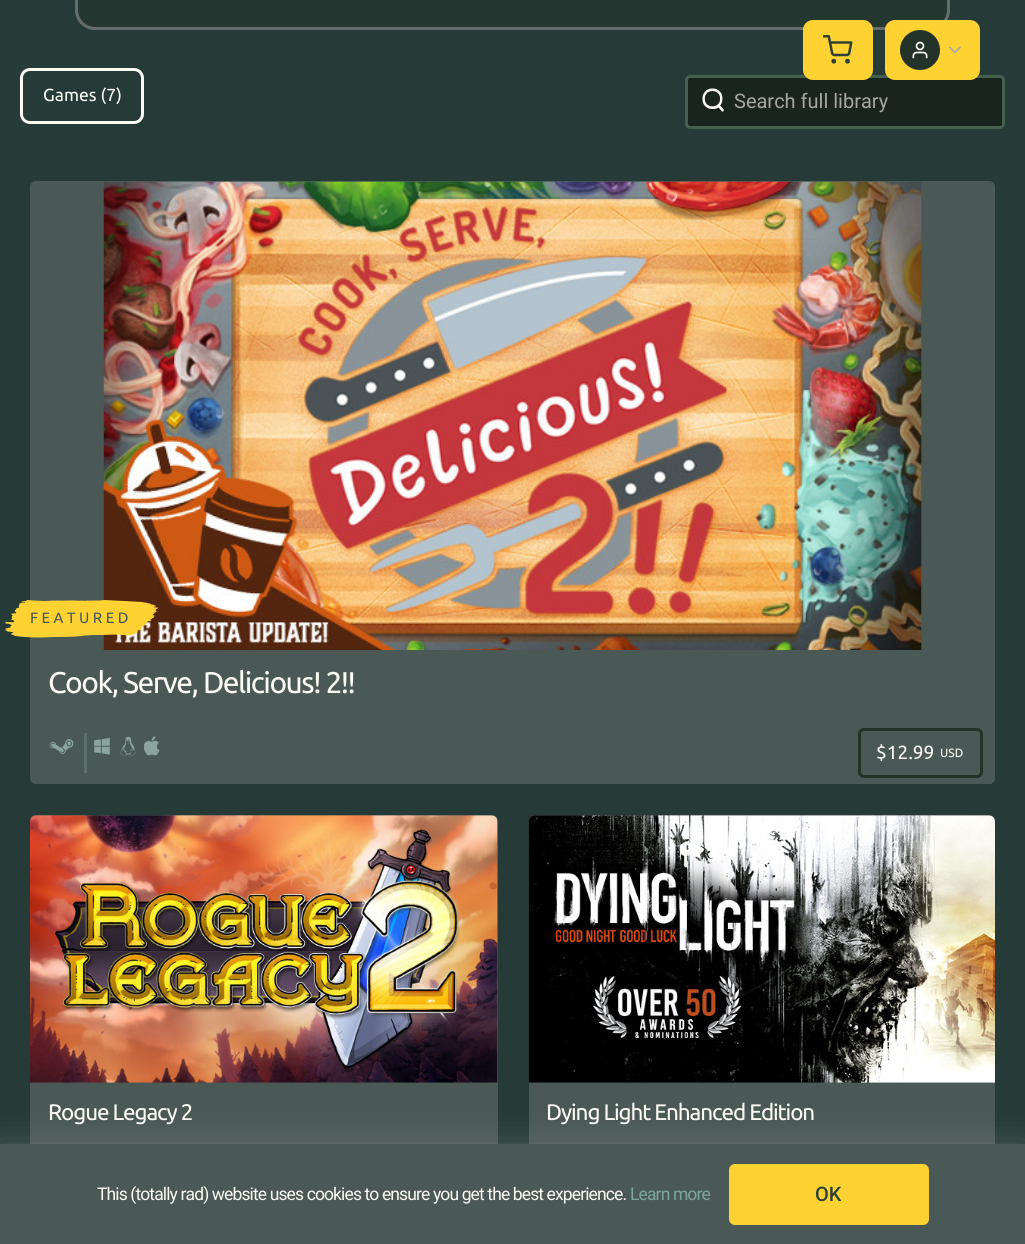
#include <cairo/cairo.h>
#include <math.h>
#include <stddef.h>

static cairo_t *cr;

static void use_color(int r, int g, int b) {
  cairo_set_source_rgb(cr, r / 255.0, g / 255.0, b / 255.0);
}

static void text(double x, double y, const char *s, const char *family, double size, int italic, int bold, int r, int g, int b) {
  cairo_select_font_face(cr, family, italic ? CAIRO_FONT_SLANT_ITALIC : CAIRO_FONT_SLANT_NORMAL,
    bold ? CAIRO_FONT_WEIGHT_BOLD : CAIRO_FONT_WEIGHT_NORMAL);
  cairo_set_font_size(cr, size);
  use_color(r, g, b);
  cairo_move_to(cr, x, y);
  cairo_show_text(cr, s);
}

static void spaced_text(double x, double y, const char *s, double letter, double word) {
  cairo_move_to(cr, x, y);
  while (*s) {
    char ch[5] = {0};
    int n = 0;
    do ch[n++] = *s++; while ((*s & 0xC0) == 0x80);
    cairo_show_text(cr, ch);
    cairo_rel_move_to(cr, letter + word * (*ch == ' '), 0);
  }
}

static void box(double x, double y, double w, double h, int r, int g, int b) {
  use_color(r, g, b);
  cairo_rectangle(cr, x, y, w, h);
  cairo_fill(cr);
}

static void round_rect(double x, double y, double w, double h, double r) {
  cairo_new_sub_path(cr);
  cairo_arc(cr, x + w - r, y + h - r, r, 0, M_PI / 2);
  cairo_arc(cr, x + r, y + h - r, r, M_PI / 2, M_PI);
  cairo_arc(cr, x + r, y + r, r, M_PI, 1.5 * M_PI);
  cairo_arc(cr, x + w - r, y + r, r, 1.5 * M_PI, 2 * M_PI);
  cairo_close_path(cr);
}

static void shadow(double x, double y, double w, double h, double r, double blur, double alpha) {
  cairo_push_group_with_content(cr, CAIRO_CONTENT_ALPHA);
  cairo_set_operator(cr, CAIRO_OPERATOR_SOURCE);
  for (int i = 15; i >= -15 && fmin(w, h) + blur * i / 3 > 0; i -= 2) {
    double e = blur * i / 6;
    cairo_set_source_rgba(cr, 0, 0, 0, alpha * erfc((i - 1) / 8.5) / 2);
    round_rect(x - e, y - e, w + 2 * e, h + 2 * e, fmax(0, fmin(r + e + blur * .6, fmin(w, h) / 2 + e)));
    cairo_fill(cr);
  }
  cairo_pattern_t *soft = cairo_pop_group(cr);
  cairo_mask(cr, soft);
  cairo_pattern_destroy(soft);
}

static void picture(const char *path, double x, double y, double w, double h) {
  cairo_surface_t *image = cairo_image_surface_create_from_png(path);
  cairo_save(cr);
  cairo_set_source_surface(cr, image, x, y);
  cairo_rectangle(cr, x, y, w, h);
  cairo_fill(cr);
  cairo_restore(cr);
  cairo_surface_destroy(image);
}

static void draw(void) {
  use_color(38, 59, 55);
  cairo_paint(cr);
  use_color(37, 55, 49);
  round_rect(75, -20, 875, 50, 20);
  cairo_fill(cr);
  round_rect(76.5, -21.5, 872, 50, 18.5);
  cairo_set_source_rgba(cr, 0.651, 0.651, 0.651, 0.5);
  cairo_set_line_width(cr, 3);
  cairo_stroke(cr);
  use_color(25, 36, 30);
  round_rect(686.5, 76.5, 317, 51, 3.5);
  cairo_fill_preserve(cr);
  use_color(68, 96, 79);
  cairo_stroke(cr);
  use_color(255, 210, 52);
  round_rect(803, 20, 70, 60, 10);
  cairo_fill(cr);
  picture("img_01.png", 823, 35, 30, 29);
  round_rect(885, 20, 95, 60, 10);
  cairo_fill(cr);
  use_color(36, 51, 42);
  cairo_arc(cr, 920, 50, 20, 0, 2 * M_PI);
  cairo_fill(cr);
  picture("img_02.png", 912, 41, 16, 18);
  cairo_new_path(cr);
  cairo_move_to(cr, 950, 47.5);
  cairo_line_to(cr, 955, 52.5);
  cairo_line_to(cr, 960, 47.5);
  use_color(166, 166, 166);
  cairo_set_line_width(cr, 1.7);
  cairo_set_line_cap(cr, CAIRO_LINE_CAP_ROUND);
  cairo_set_line_join(cr, CAIRO_LINE_JOIN_ROUND);
  cairo_stroke(cr);
  round_rect(21.5, 69.5, 121, 53, 8.5);
  use_color(251, 250, 245);
  cairo_set_line_width(cr, 3);
  cairo_set_line_cap(cr, CAIRO_LINE_CAP_BUTT);
  cairo_set_line_join(cr, CAIRO_LINE_JOIN_MITER);
  cairo_stroke(cr);
  picture("img_03.png", 702, 88, 22, 24);
  use_color(74, 89, 86);
  round_rect(30, 181, 965, 603, 6);
  cairo_fill(cr);
  picture("img_05.png", 103, 181, 819, 469);
  picture("img_04.png", 5, 600, 154, 38);
  cairo_new_path(cr);
  cairo_move_to(cr, 30, 650);
  cairo_line_to(cr, 995, 650);
  cairo_line_to(cr, 995, 778);
  cairo_curve_to(cr, 995, 781.5, 992.5, 784, 989, 784);
  cairo_line_to(cr, 36, 784);
  cairo_curve_to(cr, 32.5, 784, 30, 781.5, 30, 778);
  cairo_close_path(cr);
  cairo_fill(cr);
  picture("img_06.png", 49, 739, 25, 15);
  box(84, 733, 3, 40, 93, 111, 107);
  picture("img_07.png", 94, 738, 16, 17);
  picture("img_08.png", 120, 736, 16, 20);
  picture("img_09.png", 144, 736, 16, 20);
  round_rect(859.5, 729.5, 122, 47, 4.5);
  use_color(36, 51, 42);
  cairo_stroke(cr);
  use_color(74, 89, 86);
  round_rect(30, 815, 468, 394, 6);
  cairo_fill(cr);
  picture("img_10.png", 30, 815, 468, 268);
  round_rect(529, 815, 466, 394, 6);
  cairo_fill(cr);
  picture("img_11.png", 528, 815, 467, 268);
  use_color(166, 166, 166);
  shadow(0, 1144, 1025, 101, 0, 15, 0.3);
  box(0, 1144, 1025, 100, 74, 89, 86);
  use_color(255, 210, 52);
  round_rect(729, 1164, 200, 61, 6);
  cairo_fill(cr);
  text(43, 101, "Games (7)", "Ubuntu", 17.5, 0, 0, 251, 250, 245);
  text(734, 108, "Search full library", "Roboto", 20, 0, 0, 166, 166, 166);
  cairo_select_font_face(cr, "Ubuntu", CAIRO_FONT_SLANT_NORMAL, CAIRO_FONT_WEIGHT_NORMAL);
  cairo_set_font_size(cr, 15);
  use_color(74, 89, 86);
  spaced_text(30, 623, "FEATURED", 3.5, 0);
  cairo_set_font_size(cr, 30);
  use_color(251, 250, 245);
  spaced_text(48, 693, "Cook, Serve, Delicious! 2!!", -1.5, 0);
  text(876, 759, "$12.99", "Ubuntu", 19, 0, 0, 251, 250, 245);
  text(940, 757, "USD", "Ubuntu", 12, 0, 0, 251, 250, 245);
  cairo_set_font_size(cr, 22.5);
  spaced_text(48, 1120, "Rogue Legacy 2", -1.1, 0);
  spaced_text(546, 1120, "Dying Light Enhanced Edition", -1.1, 0);
  cairo_select_font_face(cr, "Roboto", CAIRO_FONT_SLANT_NORMAL, CAIRO_FONT_WEIGHT_NORMAL);
  cairo_set_font_size(cr, 17.5);
  spaced_text(97, 1200, "This (totally rad) website uses cookies to ensure you get the best experience.", -0.88, 0);
  use_color(124, 165, 157);
  spaced_text(630, 1200, "Learn more", -0.88, 0);
  text(815, 1201, "OK", "Roboto Medium", 20, 0, 0, 45, 65, 53);
}

int main(void) {
  cairo_surface_t *surface = cairo_image_surface_create(CAIRO_FORMAT_RGB24, 1025, 1244);
  cr = cairo_create(surface);
  cairo_font_options_t *options = cairo_font_options_create();
  cairo_font_options_set_hint_metrics(options, CAIRO_HINT_METRICS_OFF);
  cairo_font_options_set_hint_style(options, CAIRO_HINT_STYLE_NONE);
  cairo_set_font_options(cr, options);
  cairo_set_miter_limit(cr, 4);
  draw();
  cairo_surface_write_to_png(surface, "out.png");
  cairo_font_options_destroy(options);
  cairo_destroy(cr);
  cairo_surface_destroy(surface);
  return 0;
}
